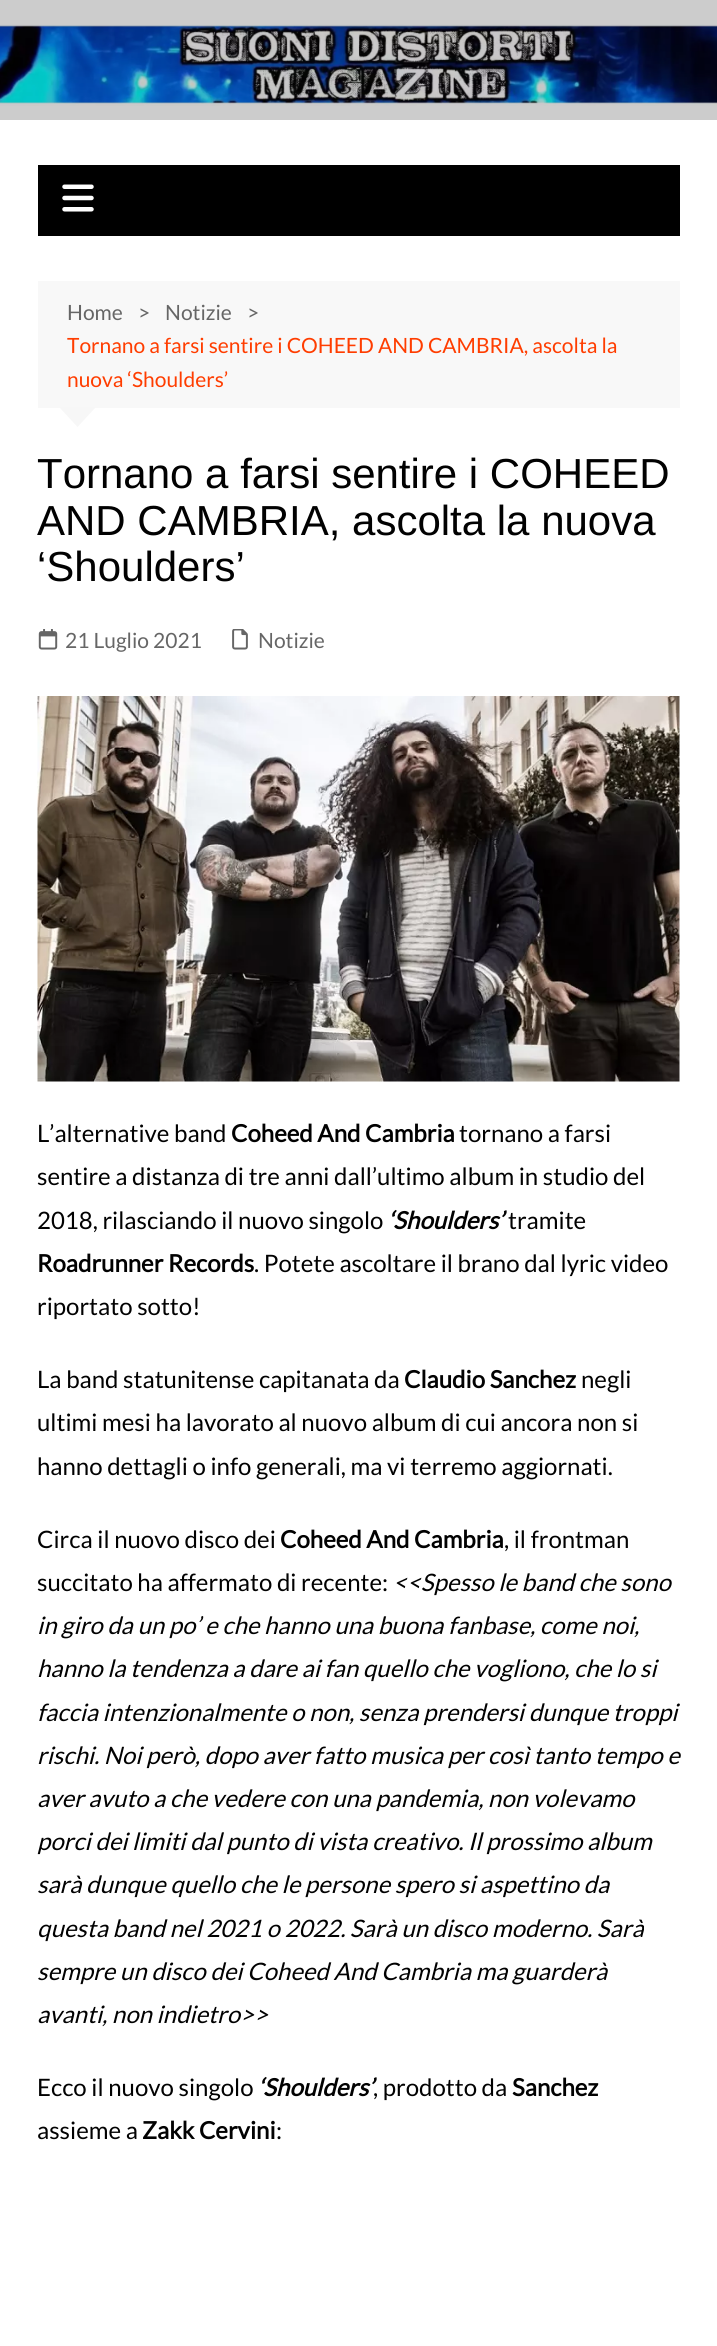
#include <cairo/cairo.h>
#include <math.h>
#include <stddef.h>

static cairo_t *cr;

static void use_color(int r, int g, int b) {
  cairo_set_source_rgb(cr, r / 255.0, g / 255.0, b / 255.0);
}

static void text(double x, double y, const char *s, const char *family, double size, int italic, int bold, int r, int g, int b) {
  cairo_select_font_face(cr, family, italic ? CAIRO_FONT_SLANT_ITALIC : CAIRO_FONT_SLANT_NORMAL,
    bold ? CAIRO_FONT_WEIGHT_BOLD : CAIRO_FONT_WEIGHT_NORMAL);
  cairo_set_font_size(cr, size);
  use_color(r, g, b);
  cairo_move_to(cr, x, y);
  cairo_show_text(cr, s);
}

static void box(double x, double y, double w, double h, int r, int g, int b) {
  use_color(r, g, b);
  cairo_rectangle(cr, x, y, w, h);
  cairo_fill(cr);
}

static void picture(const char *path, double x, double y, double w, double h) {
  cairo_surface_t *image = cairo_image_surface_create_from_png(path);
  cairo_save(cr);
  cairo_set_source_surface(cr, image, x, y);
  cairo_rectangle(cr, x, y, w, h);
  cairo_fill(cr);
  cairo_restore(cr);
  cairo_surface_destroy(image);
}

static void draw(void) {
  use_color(255, 255, 255);
  cairo_paint(cr);
  box(0, 0, 717, 120, 204, 204, 204);
  picture("img_01.png", 0, 24, 717, 82);
  box(38, 165, 642, 71, 0, 0, 0);
  picture("img_02.png", 62, 184, 32, 28);
  box(38, 281, 642, 127, 248, 248, 248);
  use_color(247, 247, 247);
  cairo_new_path(cr);
  cairo_move_to(cr, 59.5, 407.5);
  cairo_line_to(cr, 95.5, 407.5);
  cairo_line_to(cr, 77.5, 427);
  cairo_close_path(cr);
  cairo_fill(cr);
  picture("img_03.png", 38, 629, 20, 21);
  picture("img_04.png", 232, 629, 16, 21);
  picture("img_05.png", 37, 696, 643, 386);
  text(67, 320, "Home", "Lato", 21, 0, 0, 102, 102, 102);
  text(138, 320, ">", "Lato", 21, 0, 0, 102, 102, 102);
  text(165, 320, "Notizie", "Lato", 21, 0, 0, 102, 102, 102);
  text(247, 320, ">", "Lato", 21, 0, 0, 102, 102, 102);
  text(67, 353, "Tornano a farsi sentire i COHEED AND CAMBRIA, ascolta la", "Lato", 21, 0, 0, 255, 61, 0);
  text(67, 387, "nuova ‘Shoulders’", "Lato", 21, 0, 0, 255, 61, 0);
  text(37, 488, "Tornano a farsi sentire i COHEED", "Liberation Sans", 42, 0, 0, 1, 1, 1);
  text(37, 535, "AND CAMBRIA, ascolta la nuova", "Liberation Sans", 42, 0, 0, 1, 1, 1);
  text(37, 581, "‘Shoulders’", "Liberation Sans", 42, 0, 0, 1, 1, 1);
  text(65, 648, "21 Luglio 2021", "Lato", 21, 0, 0, 102, 102, 102);
  text(258, 648, "Notizie", "Lato", 21, 0, 0, 102, 102, 102);
  text(37, 1142, "L’alternative band", "Lato", 24, 0, 0, 1, 1, 1);
  text(231, 1142, "Coheed And Cambria", "Lato", 24, 0, 1, 1, 1, 1);
  text(459, 1142, "tornano a farsi", "Lato", 24, 0, 0, 1, 1, 1);
  text(37, 1185, "sentire a distanza di tre anni dall’ultimo album in studio del", "Lato", 24, 0, 0, 1, 1, 1);
  text(37, 1229, "2018, rilasciando il nuovo singolo", "Lato", 24, 0, 0, 1, 1, 1);
  text(388, 1229, "‘Shoulders’", "Lato", 24, 1, 1, 1, 1, 1);
  text(508, 1229, "tramite", "Lato", 24, 0, 0, 1, 1, 1);
  text(37, 1272, "Roadrunner Records", "Lato", 24, 0, 1, 1, 1, 1);
  text(254, 1272, ". Potete ascoltare il brano dal lyric video", "Lato", 24, 0, 0, 1, 1, 1);
  text(37, 1315, "riportato sotto!", "Lato", 24, 0, 0, 1, 1, 1);
  text(37, 1388, "La band statunitense capitanata da", "Lato", 24, 0, 0, 1, 1, 1);
  text(404, 1388, "Claudio Sanchez", "Lato", 24, 0, 1, 1, 1, 1);
  text(581, 1388, "negli", "Lato", 24, 0, 0, 1, 1, 1);
  text(37, 1431, "ultimi mesi ha lavorato al nuovo album di cui ancora non si", "Lato", 24, 0, 0, 1, 1, 1);
  text(37, 1475, "hanno dettagli o info generali, ma vi terremo aggiornati.", "Lato", 24, 0, 0, 1, 1, 1);
  text(37, 1548, "Circa il nuovo disco dei", "Lato", 24, 0, 0, 1, 1, 1);
  text(280, 1548, "Coheed And Cambria", "Lato", 24, 0, 1, 1, 1, 1);
  text(504, 1548, ", il frontman", "Lato", 24, 0, 0, 1, 1, 1);
  text(37, 1591, "succitato ha affermato di recente:", "Lato", 24, 0, 0, 1, 1, 1);
  text(393, 1591, "<<Spesso le band che sono", "Lato", 24, 1, 0, 1, 1, 1);
  text(37, 1634, "in giro da un po’ e che hanno una buona fanbase, come noi,", "Lato", 24, 1, 0, 1, 1, 1);
  text(37, 1677, "hanno la tendenza a dare ai fan quello che vogliono, che lo si", "Lato", 24, 1, 0, 1, 1, 1);
  text(37, 1721, "faccia intenzionalmente o non, senza prendersi dunque troppi", "Lato", 24, 1, 0, 1, 1, 1);
  text(37, 1764, "rischi. Noi però, dopo aver fatto musica per così tanto tempo e", "Lato", 24, 1, 0, 1, 1, 1);
  text(37, 1807, "aver avuto a che vedere con una pandemia, non volevamo", "Lato", 24, 1, 0, 1, 1, 1);
  text(37, 1850, "porci dei limiti dal punto di vista creativo. Il prossimo album", "Lato", 24, 1, 0, 1, 1, 1);
  text(37, 1893, "sarà dunque quello che le persone spero si aspettino da", "Lato", 24, 1, 0, 1, 1, 1);
  text(37, 1937, "questa band nel 2021 o 2022. Sarà un disco moderno. Sarà", "Lato", 24, 1, 0, 1, 1, 1);
  text(37, 1980, "sempre un disco dei Coheed And Cambria ma guarderà", "Lato", 24, 1, 0, 1, 1, 1);
  text(37, 2023, "avanti, non indietro>>", "Lato", 24, 1, 0, 1, 1, 1);
  text(37, 2096, "Ecco il nuovo singolo", "Lato", 24, 0, 0, 1, 1, 1);
  text(258, 2096, "‘Shoulders’", "Lato", 24, 1, 1, 1, 1, 1);
  text(373, 2096, ", prodotto da", "Lato", 24, 0, 0, 1, 1, 1);
  text(512, 2096, "Sanchez", "Lato", 24, 0, 1, 1, 1, 1);
  text(37, 2139, "assieme a", "Lato", 24, 0, 0, 1, 1, 1);
  text(142, 2139, "Zakk Cervini", "Lato", 24, 0, 1, 1, 1, 1);
  text(276, 2139, ":", "Lato", 24, 0, 0, 1, 1, 1);
}

int main(void) {
  cairo_surface_t *surface = cairo_image_surface_create(CAIRO_FORMAT_RGB24, 717, 2346);
  cr = cairo_create(surface);
  cairo_font_options_t *options = cairo_font_options_create();
  cairo_font_options_set_hint_metrics(options, CAIRO_HINT_METRICS_OFF);
  cairo_font_options_set_hint_style(options, CAIRO_HINT_STYLE_NONE);
  cairo_set_font_options(cr, options);
  cairo_set_miter_limit(cr, 4);
  draw();
  cairo_surface_write_to_png(surface, "out.png");
  cairo_font_options_destroy(options);
  cairo_destroy(cr);
  cairo_surface_destroy(surface);
  return 0;
}
